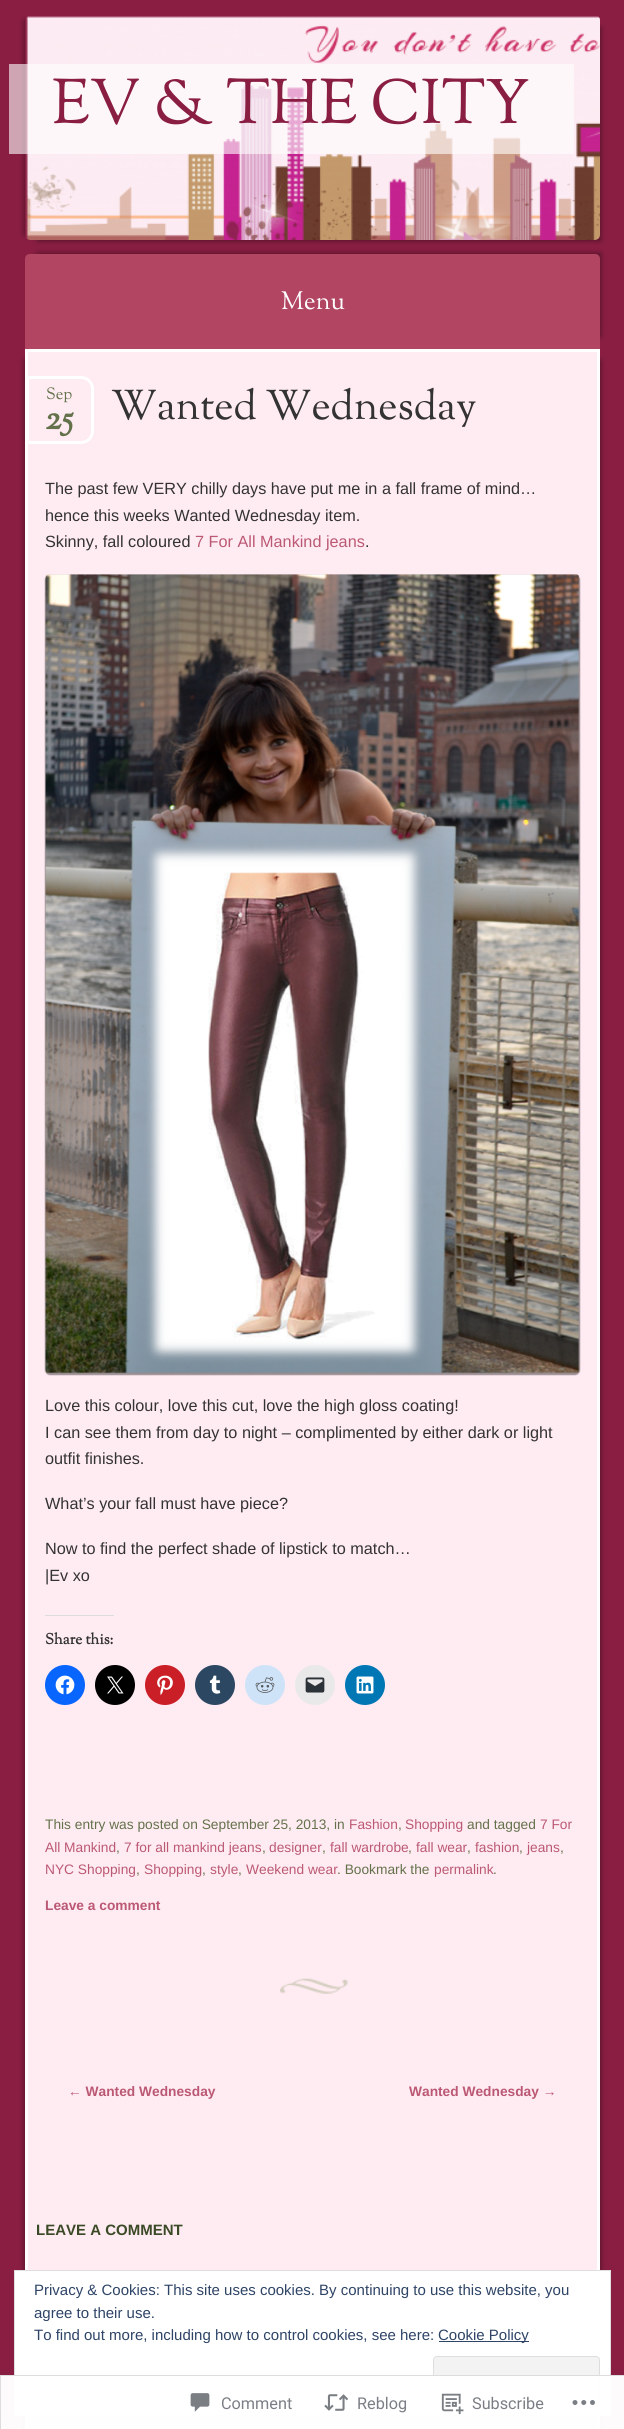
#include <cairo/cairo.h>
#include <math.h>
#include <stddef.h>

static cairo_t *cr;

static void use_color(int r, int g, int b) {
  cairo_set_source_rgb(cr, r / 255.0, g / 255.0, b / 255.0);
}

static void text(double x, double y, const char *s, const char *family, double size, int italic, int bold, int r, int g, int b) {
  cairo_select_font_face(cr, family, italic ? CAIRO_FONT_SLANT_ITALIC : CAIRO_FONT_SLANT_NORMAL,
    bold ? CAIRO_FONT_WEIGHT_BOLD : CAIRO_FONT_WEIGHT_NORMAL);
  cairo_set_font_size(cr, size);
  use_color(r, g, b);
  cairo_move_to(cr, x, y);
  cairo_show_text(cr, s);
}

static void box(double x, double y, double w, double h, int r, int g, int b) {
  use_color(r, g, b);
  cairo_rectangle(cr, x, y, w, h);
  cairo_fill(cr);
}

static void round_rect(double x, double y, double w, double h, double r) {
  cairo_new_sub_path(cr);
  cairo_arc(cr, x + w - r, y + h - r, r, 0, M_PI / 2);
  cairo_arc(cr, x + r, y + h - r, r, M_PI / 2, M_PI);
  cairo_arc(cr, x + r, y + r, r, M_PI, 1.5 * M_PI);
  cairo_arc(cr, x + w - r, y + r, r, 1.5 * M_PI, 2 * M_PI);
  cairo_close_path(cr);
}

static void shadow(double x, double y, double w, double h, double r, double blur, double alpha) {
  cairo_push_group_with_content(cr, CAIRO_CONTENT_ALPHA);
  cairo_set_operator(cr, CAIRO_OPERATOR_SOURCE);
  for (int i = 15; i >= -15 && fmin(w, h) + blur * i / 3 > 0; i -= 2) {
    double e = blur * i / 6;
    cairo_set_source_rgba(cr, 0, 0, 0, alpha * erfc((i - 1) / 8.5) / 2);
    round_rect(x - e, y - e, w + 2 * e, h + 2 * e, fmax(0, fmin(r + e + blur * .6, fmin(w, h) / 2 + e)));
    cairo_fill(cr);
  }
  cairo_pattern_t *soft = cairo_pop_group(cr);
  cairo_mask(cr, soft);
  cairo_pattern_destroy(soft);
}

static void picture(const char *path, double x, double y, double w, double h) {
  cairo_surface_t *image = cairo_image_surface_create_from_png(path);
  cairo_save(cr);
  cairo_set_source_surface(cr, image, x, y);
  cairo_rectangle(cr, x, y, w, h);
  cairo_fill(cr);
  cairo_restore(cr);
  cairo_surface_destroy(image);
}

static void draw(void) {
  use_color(137, 30, 66);
  cairo_paint(cr);
  cairo_save(cr);
  cairo_set_fill_rule(cr, CAIRO_FILL_RULE_EVEN_ODD);
  cairo_new_path(cr);
  cairo_move_to(cr, 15, 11);
  cairo_line_to(cr, 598, 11);
  cairo_line_to(cr, 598, 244);
  cairo_line_to(cr, 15, 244);
  cairo_close_path(cr);
  cairo_move_to(cr, 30, 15);
  cairo_line_to(cr, 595, 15);
  cairo_curve_to(cr, 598, 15, 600, 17, 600, 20);
  cairo_line_to(cr, 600, 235);
  cairo_curve_to(cr, 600, 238, 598, 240, 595, 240);
  cairo_line_to(cr, 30, 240);
  cairo_curve_to(cr, 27, 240, 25, 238, 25, 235);
  cairo_line_to(cr, 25, 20);
  cairo_curve_to(cr, 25, 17, 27, 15, 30, 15);
  cairo_close_path(cr);
  cairo_clip(cr);
  use_color(0, 0, 0);
  shadow(25, 21, 563, 213, 0, 3, 0.5);
  cairo_restore(cr);
  use_color(0, 0, 0);
  shadow(38, 28, 562, 212, 0, 3, 0.5);
  picture("img_01.png", 26, 16, 574, 224);
  cairo_set_source_rgba(cr, 1, 1, 1, 0.6);
  cairo_rectangle(cr, 9, 64, 565, 90);
  cairo_fill(cr);
  use_color(0, 0, 0);
  shadow(38, 254, 562, 82, 0, 3, 0.5);
  use_color(177, 69, 98);
  cairo_new_path(cr);
  cairo_move_to(cr, 30, 254);
  cairo_line_to(cr, 595, 254);
  cairo_curve_to(cr, 598, 254, 600, 256, 600, 259);
  cairo_line_to(cr, 600, 349);
  cairo_line_to(cr, 25, 349);
  cairo_line_to(cr, 25, 259);
  cairo_curve_to(cr, 25, 256, 27, 254, 30, 254);
  cairo_close_path(cr);
  cairo_fill(cr);
  use_color(0, 0, 0);
  shadow(25, 361, 563, 1975, 0, 3, 0.5);
  shadow(38, 361, 562, 1975, 0, 3, 0.5);
  box(28, 352, 569, 1918, 255, 235, 242);
  cairo_rectangle(cr, 26.5, 350.5, 572, 1984);
  use_color(255, 255, 255);
  cairo_set_line_width(cr, 3);
  cairo_stroke(cr);
  picture("img_02.png", 280, 1978, 68, 16);
  use_color(255, 235, 242);
  cairo_new_path(cr);
  cairo_move_to(cr, 27.5, 377.5);
  cairo_line_to(cr, 81, 377.5);
  cairo_curve_to(cr, 87.5, 377.5, 92.5, 382.5, 92.5, 389);
  cairo_line_to(cr, 92.5, 431);
  cairo_curve_to(cr, 92.5, 437.5, 87.5, 442.5, 81, 442.5);
  cairo_line_to(cr, 27.5, 442.5);
  cairo_close_path(cr);
  cairo_fill_preserve(cr);
  use_color(255, 255, 255);
  cairo_stroke(cr);
  use_color(0, 0, 0);
  shadow(45, 575, 535, 800, 5, 0.5, 0.4);
  picture("img_03.png", 45, 574, 535, 800);
  box(45, 1615, 69, 1, 220, 220, 222);
  use_color(8, 102, 255);
  cairo_arc(cr, 65, 1685, 20, 0, 2 * M_PI);
  cairo_fill(cr);
  picture("img_04.png", 55, 1675, 20, 20);
  use_color(0, 0, 0);
  cairo_arc(cr, 115, 1685, 20, 0, 2 * M_PI);
  cairo_fill(cr);
  picture("img_05.png", 107, 1676, 17, 18);
  use_color(202, 31, 39);
  cairo_arc(cr, 165, 1685, 20, 0, 2 * M_PI);
  cairo_fill(cr);
  picture("img_06.png", 157, 1675, 16, 20);
  use_color(44, 71, 98);
  cairo_arc(cr, 215, 1685, 20, 0, 2 * M_PI);
  cairo_fill(cr);
  picture("img_07.png", 209, 1675, 12, 19);
  use_color(206, 227, 248);
  cairo_arc(cr, 265, 1685, 20, 0, 2 * M_PI);
  cairo_fill(cr);
  picture("img_08.png", 255, 1677, 20, 16);
  use_color(233, 233, 233);
  cairo_arc(cr, 315, 1685, 20, 0, 2 * M_PI);
  cairo_fill(cr);
  picture("img_09.png", 305, 1677, 20, 16);
  use_color(0, 119, 181);
  cairo_arc(cr, 365, 1685, 20, 0, 2 * M_PI);
  cairo_fill(cr);
  picture("img_10.png", 356, 1676, 18, 18);
  use_color(0, 0, 0);
  shadow(25, 2363, 563, 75, 0, 3, 0.5);
  shadow(38, 2363, 562, 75, 0, 3, 0.5);
  box(28, 2416, 569, 13, 255, 216, 232);
  cairo_rectangle(cr, 26.5, 2406.5, 572, 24);
  use_color(255, 255, 255);
  cairo_stroke(cr);
  cairo_rectangle(cr, 14.5, 2270.5, 596, 145);
  cairo_fill_preserve(cr);
  use_color(222, 222, 222);
  cairo_set_line_width(cr, 1);
  cairo_stroke(cr);
  box(439, 2341, 90, 1, 46, 68, 103);
  use_color(243, 243, 243);
  round_rect(433.5, 2356.5, 166, 48, 3.5);
  cairo_fill_preserve(cr);
  use_color(222, 222, 222);
  cairo_stroke(cr);
  cairo_set_source_rgba(cr, 1, 1, 1, 0.98);
  cairo_rectangle(cr, 0, 2375, 624, 54);
  cairo_fill(cr);
  cairo_rectangle(cr, 0.5, 2375.5, 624, 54);
  cairo_set_source_rgba(cr, 0.863, 0.863, 0.871, 0.98);
  cairo_stroke(cr);
  picture("img_11.png", 190, 2393, 20, 19);
  picture("img_12.png", 324, 2394, 25, 17);
  picture("img_13.png", 441, 2393, 23, 22);
  picture("img_14.png", 572, 2400, 23, 5);
  text(52, 123, "EV & THE CITY", "Sorts Mill Goudy", 62.5, 0, 0, 137, 30, 66);
  text(281, 309, "Menu", "Sorts Mill Goudy", 25, 0, 0, 255, 255, 255);
  text(46, 399, "Sep", "Sorts Mill Goudy", 16.25, 0, 0, 99, 114, 75);
  text(45, 429, "25", "Sorts Mill Goudy", 35, 0, 1, 99, 114, 75);
  text(111, 419, "Wanted Wednesday", "Sorts Mill Goudy", 41.25, 0, 0, 51, 51, 51);
  text(45, 494, "The past few VERY chilly days have put me in a fall frame of mind…", "Liberation Sans", 16.25, 0, 0, 51, 51, 51);
  text(45, 521, "hence this weeks Wanted Wednesday item.", "Liberation Sans", 16.25, 0, 0, 51, 51, 51);
  text(45, 547, "Skinny, fall coloured", "Liberation Sans", 16.25, 0, 0, 51, 51, 51);
  text(195, 547, "7 For All Mankind jeans", "Liberation Sans", 16.25, 0, 0, 187, 89, 116);
  text(365, 547, ".", "Liberation Sans", 16.25, 0, 0, 51, 51, 51);
  text(45, 1411, "Love this colour, love this cut, love the high gloss coating!", "Liberation Sans", 16.25, 0, 0, 51, 51, 51);
  text(45, 1438, "I can see them from day to night – complimented by either dark or light", "Liberation Sans", 16.25, 0, 0, 51, 51, 51);
  text(45, 1464, "outfit finishes.", "Liberation Sans", 16.25, 0, 0, 51, 51, 51);
  text(45, 1509, "What’s your fall must have piece?", "Liberation Sans", 16.25, 0, 0, 51, 51, 51);
  text(45, 1554, "Now to find the perfect shade of lipstick to match…", "Liberation Sans", 16.25, 0, 0, 51, 51, 51);
  text(45, 1581, "|Ev xo", "Liberation Sans", 16.25, 0, 0, 51, 51, 51);
  text(45, 1644, "Share this:", "Sorts Mill Goudy", 15, 0, 1, 51, 51, 51);
  text(45, 1829, "This entry was posted on September 25, 2013, in", "Liberation Sans", 13.75, 0, 0, 99, 114, 75);
  text(349, 1829, "Fashion", "Liberation Sans", 13.75, 0, 0, 187, 89, 116);
  text(398, 1829, ",", "Liberation Sans", 13.75, 0, 0, 99, 114, 75);
  text(405, 1829, "Shopping", "Liberation Sans", 13.75, 0, 0, 187, 89, 116);
  text(467, 1829, "and tagged", "Liberation Sans", 13.75, 0, 0, 99, 114, 75);
  text(540, 1829, "7 For", "Liberation Sans", 13.75, 0, 0, 187, 89, 116);
  text(45, 1852, "All Mankind", "Liberation Sans", 13.75, 0, 0, 187, 89, 116);
  text(116, 1852, ",", "Liberation Sans", 13.75, 0, 0, 99, 114, 75);
  text(124, 1852, "7 for all mankind jeans", "Liberation Sans", 13.75, 0, 0, 187, 89, 116);
  text(262, 1852, ",", "Liberation Sans", 13.75, 0, 0, 99, 114, 75);
  text(269, 1852, "designer", "Liberation Sans", 13.75, 0, 0, 187, 89, 116);
  text(322, 1852, ",", "Liberation Sans", 13.75, 0, 0, 99, 114, 75);
  text(330, 1852, "fall wardrobe", "Liberation Sans", 13.75, 0, 0, 187, 89, 116);
  text(408, 1852, ",", "Liberation Sans", 13.75, 0, 0, 99, 114, 75);
  text(416, 1852, "fall wear", "Liberation Sans", 13.75, 0, 0, 187, 89, 116);
  text(467, 1852, ",", "Liberation Sans", 13.75, 0, 0, 99, 114, 75);
  text(475, 1852, "fashion", "Liberation Sans", 13.75, 0, 0, 187, 89, 116);
  text(519, 1852, ",", "Liberation Sans", 13.75, 0, 0, 99, 114, 75);
  text(527, 1852, "jeans", "Liberation Sans", 13.75, 0, 0, 187, 89, 116);
  text(560, 1852, ",", "Liberation Sans", 13.75, 0, 0, 99, 114, 75);
  text(45, 1874, "NYC Shopping", "Liberation Sans", 13.75, 0, 0, 187, 89, 116);
  text(136, 1874, ",", "Liberation Sans", 13.75, 0, 0, 99, 114, 75);
  text(144, 1874, "Shopping", "Liberation Sans", 13.75, 0, 0, 187, 89, 116);
  text(202, 1874, ",", "Liberation Sans", 13.75, 0, 0, 99, 114, 75);
  text(210, 1874, "style", "Liberation Sans", 13.75, 0, 0, 187, 89, 116);
  text(238, 1874, ",", "Liberation Sans", 13.75, 0, 0, 99, 114, 75);
  text(246, 1874, "Weekend wear", "Liberation Sans", 13.75, 0, 0, 187, 89, 116);
  text(337, 1874, ". Bookmark the", "Liberation Sans", 13.75, 0, 0, 99, 114, 75);
  text(434, 1874, "permalink", "Liberation Sans", 13.75, 0, 0, 187, 89, 116);
  text(493, 1874, ".", "Liberation Sans", 13.75, 0, 0, 99, 114, 75);
  text(45, 1910, "Leave a comment", "Liberation Sans", 13.75, 0, 1, 187, 89, 116);
  text(68, 2096, "← Wanted Wednesday", "Liberation Sans", 13.75, 0, 1, 187, 89, 116);
  text(409, 2096, "Wanted Wednesday →", "Liberation Sans", 13.75, 0, 1, 187, 89, 116);
  text(36, 2235, "LEAVE A COMMENT", "Liberation Sans", 15, 0, 1, 59, 74, 38);
  text(34, 2295, "Privacy & Cookies: This site uses cookies. By continuing to use this website, you", "Liberation Sans", 15, 0, 0, 46, 68, 103);
  text(34, 2318, "agree to their use.", "Liberation Sans", 15, 0, 0, 46, 68, 103);
  text(34, 2340, "To find out more, including how to control cookies, see here:", "Liberation Sans", 15, 0, 0, 46, 68, 103);
  text(438, 2340, "Cookie Policy", "Liberation Sans", 15, 0, 0, 46, 68, 103);
  text(221, 2409, "Comment", "Roboto", 16.25, 0, 0, 123, 127, 133);
  text(357, 2409, "Reblog", "Roboto", 16.25, 0, 0, 123, 127, 133);
  text(472, 2409, "Subscribe", "Roboto", 16.25, 0, 0, 123, 127, 133);
}

int main(void) {
  cairo_surface_t *surface = cairo_image_surface_create(CAIRO_FORMAT_RGB24, 624, 2429);
  cr = cairo_create(surface);
  cairo_font_options_t *options = cairo_font_options_create();
  cairo_font_options_set_hint_metrics(options, CAIRO_HINT_METRICS_OFF);
  cairo_font_options_set_hint_style(options, CAIRO_HINT_STYLE_NONE);
  cairo_set_font_options(cr, options);
  cairo_set_miter_limit(cr, 4);
  draw();
  cairo_surface_write_to_png(surface, "out.png");
  cairo_font_options_destroy(options);
  cairo_destroy(cr);
  cairo_surface_destroy(surface);
  return 0;
}
